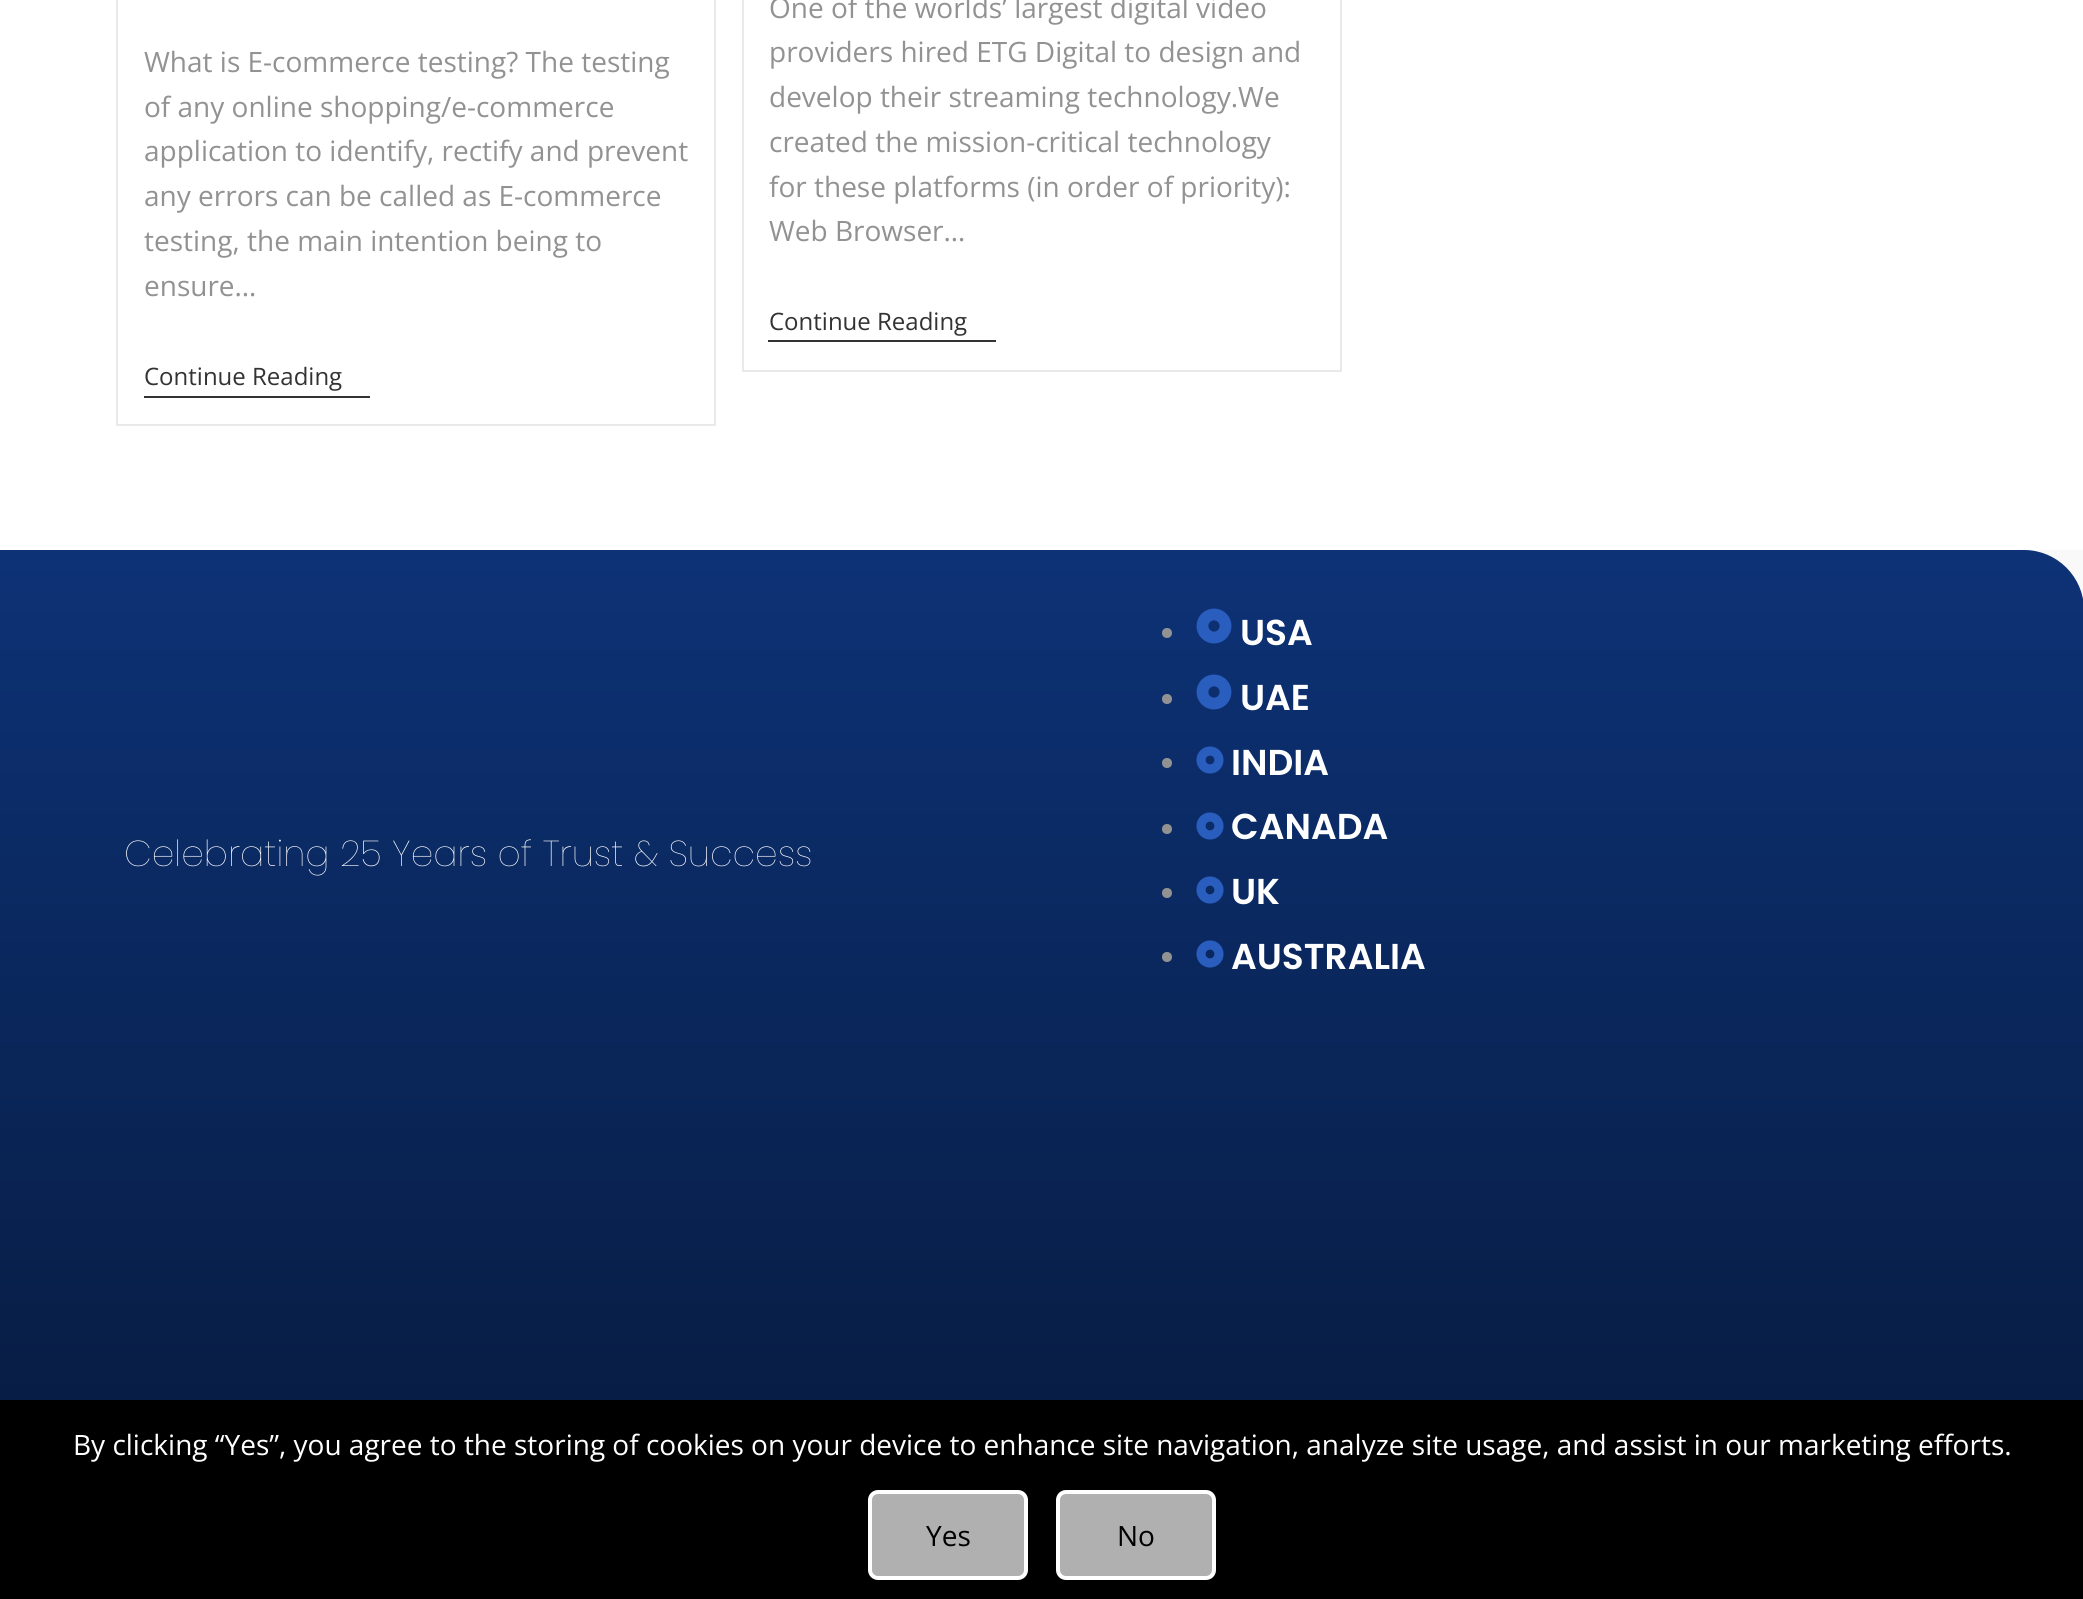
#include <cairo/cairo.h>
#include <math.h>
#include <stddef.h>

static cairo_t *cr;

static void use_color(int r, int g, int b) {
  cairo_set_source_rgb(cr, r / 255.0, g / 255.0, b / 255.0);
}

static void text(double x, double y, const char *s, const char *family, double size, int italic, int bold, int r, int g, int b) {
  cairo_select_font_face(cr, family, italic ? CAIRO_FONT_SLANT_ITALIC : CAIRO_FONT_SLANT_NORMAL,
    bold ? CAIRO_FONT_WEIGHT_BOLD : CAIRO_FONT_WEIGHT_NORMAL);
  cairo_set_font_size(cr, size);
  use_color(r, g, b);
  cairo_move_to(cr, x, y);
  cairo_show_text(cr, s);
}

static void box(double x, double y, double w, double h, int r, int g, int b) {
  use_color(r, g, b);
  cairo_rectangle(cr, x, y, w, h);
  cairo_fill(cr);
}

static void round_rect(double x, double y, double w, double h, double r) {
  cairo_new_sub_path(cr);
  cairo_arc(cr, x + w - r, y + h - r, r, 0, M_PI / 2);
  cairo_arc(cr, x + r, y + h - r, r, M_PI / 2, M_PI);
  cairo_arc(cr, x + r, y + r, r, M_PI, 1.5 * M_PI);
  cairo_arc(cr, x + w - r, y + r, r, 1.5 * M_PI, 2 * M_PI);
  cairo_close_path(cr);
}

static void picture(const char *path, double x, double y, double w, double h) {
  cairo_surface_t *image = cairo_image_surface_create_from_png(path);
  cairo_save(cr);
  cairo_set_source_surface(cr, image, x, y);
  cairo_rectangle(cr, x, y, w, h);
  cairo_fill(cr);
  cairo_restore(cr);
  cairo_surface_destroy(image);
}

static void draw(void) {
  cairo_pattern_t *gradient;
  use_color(255, 255, 255);
  cairo_paint(cr);
  cairo_rectangle(cr, 117, -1, 598, 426);
  use_color(233, 233, 233);
  cairo_stroke(cr);
  box(144, 396, 226, 2, 51, 51, 51);
  cairo_rectangle(cr, 743, -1, 598, 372);
  use_color(233, 233, 233);
  cairo_stroke(cr);
  box(768, 340, 228, 2, 51, 51, 51);
  box(2025, 550, 58, 50, 249, 249, 249);
  gradient = cairo_pattern_create_linear(1042, 550, 1042, 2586);
  cairo_pattern_add_color_stop_rgba(gradient, 0, 0.051, 0.196, 0.463, 1);
  cairo_pattern_add_color_stop_rgba(gradient, 1, 0, 0, 0, 1);
  cairo_set_source(cr, gradient);
  cairo_pattern_destroy(gradient);
  cairo_new_path(cr);
  cairo_move_to(cr, 0, 550);
  cairo_line_to(cr, 2024, 550);
  cairo_curve_to(cr, 2057, 550, 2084, 577, 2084, 610);
  cairo_line_to(cr, 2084, 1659);
  cairo_line_to(cr, 60, 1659);
  cairo_curve_to(cr, 27, 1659, 0, 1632, 0, 1599);
  cairo_close_path(cr);
  cairo_fill(cr);
  use_color(146, 146, 146);
  cairo_arc(cr, 1167, 633, 5, 0, 2 * M_PI);
  cairo_fill(cr);
  picture("img_01.png", 1196, 608, 36, 36);
  cairo_arc(cr, 1167, 699, 5, 0, 2 * M_PI);
  cairo_fill(cr);
  picture("img_02.png", 1196, 674, 36, 36);
  cairo_arc(cr, 1167, 763, 5, 0, 2 * M_PI);
  cairo_fill(cr);
  picture("img_03.png", 1196, 746, 28, 28);
  cairo_arc(cr, 1167, 829, 5, 0, 2 * M_PI);
  cairo_fill(cr);
  picture("img_04.png", 1196, 812, 28, 28);
  cairo_arc(cr, 1167, 893, 5, 0, 2 * M_PI);
  cairo_fill(cr);
  picture("img_05.png", 1196, 876, 28, 28);
  cairo_arc(cr, 1167, 957, 5, 0, 2 * M_PI);
  cairo_fill(cr);
  picture("img_06.png", 1196, 940, 28, 28);
  box(0, 1400, 2083, 199, 0, 0, 0);
  use_color(176, 176, 176);
  round_rect(870, 1492, 156, 86, 8);
  cairo_fill_preserve(cr);
  use_color(255, 255, 255);
  cairo_set_line_width(cr, 4);
  cairo_stroke(cr);
  use_color(176, 176, 176);
  round_rect(1058, 1492, 156, 86, 8);
  cairo_fill_preserve(cr);
  use_color(255, 255, 255);
  cairo_stroke(cr);
  text(144, 72, "What is E-commerce testing? The testing", "Open Sans", 28, 0, 0, 146, 146, 146);
  text(144, 117, "of any online shopping/e-commerce", "Open Sans", 28, 0, 0, 146, 146, 146);
  text(144, 161, "application to identify, rectify and prevent", "Open Sans", 28, 0, 0, 146, 146, 146);
  text(144, 206, "any errors can be called as E-commerce", "Open Sans", 28, 0, 0, 146, 146, 146);
  text(144, 251, "testing, the main intention being to", "Open Sans", 28, 0, 0, 146, 146, 146);
  text(144, 296, "ensure…", "Open Sans", 28, 0, 0, 146, 146, 146);
  text(144, 385, "Continue Reading", "Open Sans", 24, 0, 0, 51, 51, 51);
  text(769, 18, "One of the worlds’ largest digital video", "Open Sans", 28, 0, 0, 146, 146, 146);
  text(769, 62, "providers hired ETG Digital to design and", "Open Sans", 28, 0, 0, 146, 146, 146);
  text(769, 107, "develop their streaming technology.We", "Open Sans", 28, 0, 0, 146, 146, 146);
  text(769, 152, "created the mission-critical technology", "Open Sans", 28, 0, 0, 146, 146, 146);
  text(769, 197, "for these platforms (in order of priority):", "Open Sans", 28, 0, 0, 146, 146, 146);
  text(769, 241, "Web Browser…", "Open Sans", 28, 0, 0, 146, 146, 146);
  text(769, 330, "Continue Reading", "Open Sans", 24, 0, 0, 51, 51, 51);
  text(124, 866, "Celebrating 25 Years of Trust & Success", "Poppins ExtraLight", 36, 0, 0, 255, 255, 255);
  text(1240, 645, "USA", "Poppins SemiBold", 36, 0, 0, 255, 255, 255);
  text(1240, 710, "UAE", "Poppins SemiBold", 36, 0, 0, 255, 255, 255);
  text(1231, 775, "INDIA", "Poppins SemiBold", 36, 0, 0, 255, 255, 255);
  text(1231, 839, "CANADA", "Poppins SemiBold", 36, 0, 0, 255, 255, 255);
  text(1231, 904, "UK", "Poppins SemiBold", 36, 0, 0, 255, 255, 255);
  text(1231, 969, "AUSTRALIA", "Poppins SemiBold", 36, 0, 0, 255, 255, 255);
  text(73, 1455, "By clicking “Yes”, you agree to the storing of cookies on your device to enhance site navigation, analyze site usage, and assist in our marketing efforts.", "Open Sans", 28, 0, 0, 255, 255, 255);
  text(926, 1546, "Yes", "Open Sans", 28, 0, 0, 0, 0, 0);
  text(1117, 1546, "No", "Open Sans", 28, 0, 0, 0, 0, 0);
}

int main(void) {
  cairo_surface_t *surface = cairo_image_surface_create(CAIRO_FORMAT_RGB24, 2083, 1599);
  cr = cairo_create(surface);
  cairo_font_options_t *options = cairo_font_options_create();
  cairo_font_options_set_hint_metrics(options, CAIRO_HINT_METRICS_OFF);
  cairo_font_options_set_hint_style(options, CAIRO_HINT_STYLE_NONE);
  cairo_set_font_options(cr, options);
  cairo_set_miter_limit(cr, 4);
  draw();
  cairo_surface_write_to_png(surface, "out.png");
  cairo_font_options_destroy(options);
  cairo_destroy(cr);
  cairo_surface_destroy(surface);
  return 0;
}
